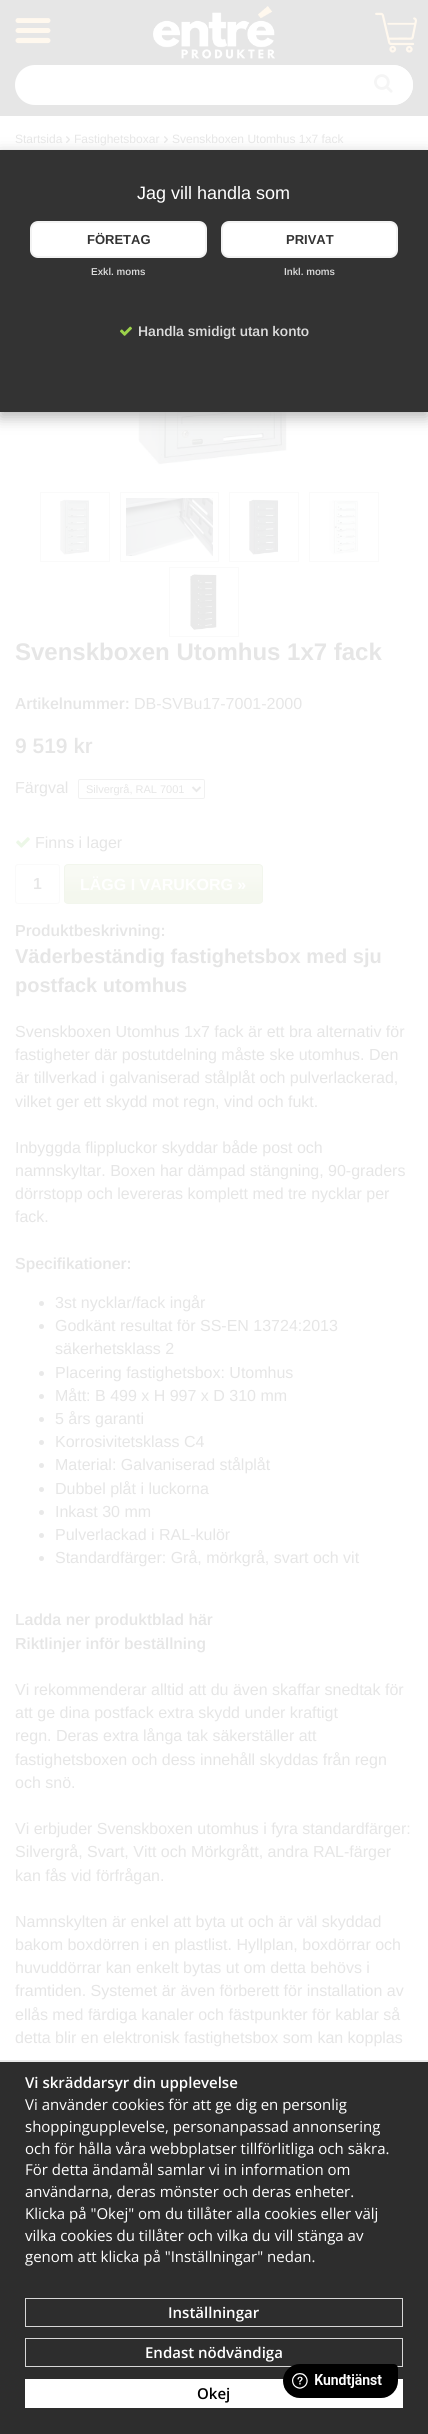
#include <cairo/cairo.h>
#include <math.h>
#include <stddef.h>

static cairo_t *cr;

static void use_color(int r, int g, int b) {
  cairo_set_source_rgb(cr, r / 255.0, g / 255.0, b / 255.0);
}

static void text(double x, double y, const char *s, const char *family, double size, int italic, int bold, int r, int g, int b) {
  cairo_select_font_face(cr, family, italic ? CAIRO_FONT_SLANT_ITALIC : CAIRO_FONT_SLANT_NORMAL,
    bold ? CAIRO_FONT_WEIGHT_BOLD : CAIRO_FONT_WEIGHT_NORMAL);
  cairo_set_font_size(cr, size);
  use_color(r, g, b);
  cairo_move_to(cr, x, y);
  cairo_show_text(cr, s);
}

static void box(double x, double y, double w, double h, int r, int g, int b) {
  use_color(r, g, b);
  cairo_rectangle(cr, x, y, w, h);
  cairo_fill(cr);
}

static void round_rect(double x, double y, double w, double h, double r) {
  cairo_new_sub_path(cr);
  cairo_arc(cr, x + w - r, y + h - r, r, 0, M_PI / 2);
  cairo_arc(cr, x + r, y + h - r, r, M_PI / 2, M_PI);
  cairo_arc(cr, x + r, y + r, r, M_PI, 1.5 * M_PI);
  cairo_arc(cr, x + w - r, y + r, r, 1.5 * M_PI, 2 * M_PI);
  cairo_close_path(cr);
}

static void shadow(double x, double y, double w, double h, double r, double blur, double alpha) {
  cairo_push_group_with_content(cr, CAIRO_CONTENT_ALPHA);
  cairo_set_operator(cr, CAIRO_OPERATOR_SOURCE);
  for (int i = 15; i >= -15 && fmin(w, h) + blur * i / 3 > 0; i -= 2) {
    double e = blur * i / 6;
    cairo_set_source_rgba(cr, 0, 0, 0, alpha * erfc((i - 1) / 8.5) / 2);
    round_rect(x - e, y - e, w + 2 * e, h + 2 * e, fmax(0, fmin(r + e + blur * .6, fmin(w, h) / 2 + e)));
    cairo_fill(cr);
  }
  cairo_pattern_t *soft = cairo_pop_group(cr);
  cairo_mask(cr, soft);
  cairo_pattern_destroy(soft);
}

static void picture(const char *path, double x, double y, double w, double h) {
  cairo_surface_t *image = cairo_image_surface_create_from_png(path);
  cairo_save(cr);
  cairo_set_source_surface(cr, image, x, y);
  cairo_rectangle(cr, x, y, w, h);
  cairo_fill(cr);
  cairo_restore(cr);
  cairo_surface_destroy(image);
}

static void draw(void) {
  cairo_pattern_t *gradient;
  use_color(255, 255, 255);
  cairo_paint(cr);
  box(0, 0, 428, 116, 230, 230, 230);
  use_color(255, 255, 255);
  round_rect(15, 65, 398, 40, 20);
  cairo_fill(cr);
  cairo_new_path(cr);
  cairo_move_to(cr, 353, 65);
  cairo_line_to(cr, 393, 65);
  cairo_curve_to(cr, 404, 65, 413, 74, 413, 85);
  cairo_curve_to(cr, 413, 96, 404, 105, 393, 105);
  cairo_line_to(cr, 353, 105);
  cairo_close_path(cr);
  cairo_fill(cr);
  picture("img_01.png", 374, 74, 19, 19);
  picture("img_02.png", 15, 18, 36, 26);
  picture("img_03.png", 153, 6, 122, 53);
  picture("img_04.png", 375, 12, 42, 41);
  picture("img_05.png", 66, 136, 4, 7);
  picture("img_05.png", 164, 136, 4, 7);
  picture("img_06.png", 137, 412, 152, 54);
  cairo_rectangle(cr, 40.5, 492.5, 69, 69);
  use_color(250, 250, 250);
  cairo_set_line_width(cr, 1);
  cairo_stroke(cr);
  cairo_rectangle(cr, 120.5, 492.5, 98, 69);
  cairo_stroke(cr);
  cairo_rectangle(cr, 229.5, 492.5, 69, 69);
  cairo_stroke(cr);
  cairo_rectangle(cr, 309.5, 492.5, 69, 69);
  cairo_stroke(cr);
  picture("img_07.png", 60, 499, 31, 56);
  picture("img_08.png", 126, 498, 87, 58);
  picture("img_09.png", 249, 499, 30, 56);
  picture("img_10.png", 329, 500, 30, 55);
  cairo_rectangle(cr, 169.5, 567.5, 69, 69);
  cairo_stroke(cr);
  picture("img_11.png", 189, 574, 28, 57);
  round_rect(78.5, 779.5, 126, 19, 1.5);
  use_color(241, 241, 241);
  cairo_stroke(cr);
  cairo_new_path(cr);
  cairo_move_to(cr, 192.5, 787);
  cairo_line_to(cr, 196.5, 791);
  cairo_line_to(cr, 200.5, 787);
  use_color(233, 233, 233);
  cairo_set_line_width(cr, 2);
  cairo_stroke(cr);
  picture("img_12.png", 16, 837, 14, 11);
  round_rect(15.5, 864.5, 44, 39, 2.5);
  use_color(250, 250, 250);
  cairo_set_line_width(cr, 1);
  cairo_stroke(cr);
  cairo_save(cr);
  round_rect(64, 864, 199, 40, 4);
  cairo_clip(cr);
  gradient = cairo_pattern_create_linear(164, 903, 164, 865);
  cairo_pattern_add_color_stop_rgba(gradient, 0.25, 0.957, 0.969, 0.933, 1);
  cairo_pattern_add_color_stop_rgba(gradient, 0.75, 0.973, 0.98, 0.957, 1);
  cairo_set_source(cr, gradient);
  cairo_pattern_destroy(gradient);
  cairo_rectangle(cr, 64, 865, 199, 38);
  cairo_fill(cr);
  cairo_restore(cr);
  round_rect(64.5, 864.5, 198, 39, 3.5);
  use_color(242, 246, 237);
  cairo_stroke(cr);
  use_color(233, 233, 233);
  cairo_arc(cr, 41.5, 1303.5, 2.5, 0, 2 * M_PI);
  cairo_fill(cr);
  cairo_arc(cr, 41.5, 1326.5, 2.5, 0, 2 * M_PI);
  cairo_fill(cr);
  cairo_arc(cr, 41.5, 1373.5, 2.5, 0, 2 * M_PI);
  cairo_fill(cr);
  cairo_arc(cr, 41.5, 1396.5, 2.5, 0, 2 * M_PI);
  cairo_fill(cr);
  cairo_arc(cr, 41.5, 1419.5, 2.5, 0, 2 * M_PI);
  cairo_fill(cr);
  cairo_arc(cr, 41.5, 1442.5, 2.5, 0, 2 * M_PI);
  cairo_fill(cr);
  cairo_arc(cr, 41.5, 1465.5, 2.5, 0, 2 * M_PI);
  cairo_fill(cr);
  cairo_arc(cr, 41.5, 1489.5, 2.5, 0, 2 * M_PI);
  cairo_fill(cr);
  cairo_arc(cr, 41.5, 1512.5, 2.5, 0, 2 * M_PI);
  cairo_fill(cr);
  cairo_arc(cr, 41.5, 1535.5, 2.5, 0, 2 * M_PI);
  cairo_fill(cr);
  cairo_arc(cr, 41.5, 1558.5, 2.5, 0, 2 * M_PI);
  cairo_fill(cr);
  use_color(181, 181, 181);
  shadow(0, 155, 428, 262, 0, 7.5, 1);
  box(0, 150, 428, 262, 51, 51, 51);
  use_color(255, 255, 255);
  round_rect(31, 222, 175, 35, 7);
  cairo_fill_preserve(cr);
  use_color(243, 243, 243);
  cairo_set_line_width(cr, 2);
  cairo_stroke(cr);
  use_color(255, 255, 255);
  round_rect(222, 222, 175, 35, 7);
  cairo_fill_preserve(cr);
  use_color(243, 243, 243);
  cairo_stroke(cr);
  picture("img_13.png", 120, 326, 12, 10);
  box(0, 2062, 428, 372, 45, 45, 45);
  box(0, 2060, 428, 2, 233, 233, 233);
  cairo_rectangle(cr, 25.5, 2298.5, 377, 28);
  use_color(215, 215, 215);
  cairo_set_line_width(cr, 1);
  cairo_stroke(cr);
  cairo_rectangle(cr, 25.5, 2338.5, 377, 28);
  cairo_stroke(cr);
  box(25, 2379, 378, 29, 255, 255, 255);
  picture("img_14.png", 283, 2364, 115, 34);
  text(15, 143, "Startsida", "Arimo", 12, 0, 0, 230, 230, 230);
  text(74, 143, "Fastighetsboxar", "Arimo", 12, 0, 0, 230, 230, 230);
  text(172, 143, "Svenskboxen Utomhus 1x7 fack", "Arimo", 12, 0, 0, 230, 230, 230);
  text(15, 660, "Svenskboxen Utomhus 1x7 fack", "Arimo", 24, 0, 1, 230, 230, 230);
  text(15, 709, "Artikelnummer:", "Arimo SemiBold", 16, 0, 0, 230, 230, 230);
  text(134, 709, "DB-SVBu17-7001-2000", "Arimo", 16, 0, 0, 230, 230, 230);
  text(15, 753, "9 519 kr", "Arimo SemiBold", 21, 0, 0, 230, 230, 230);
  text(15, 793, "Färgval", "Arimo", 16, 0, 0, 230, 230, 230);
  text(86, 793, "Silvergrå, RAL 7001", "Arimo", 11, 0, 0, 230, 230, 230);
  text(35, 848, "Finns i lager", "Arimo", 16, 0, 0, 230, 230, 230);
  text(33, 889, "1", "Arimo SemiBold", 16, 0, 0, 230, 230, 230);
  text(80, 890, "LÄGG I VARUKORG »", "Arimo", 16, 0, 1, 255, 255, 255);
  text(15, 936, "Produktbeskrivning:", "Arimo SemiBold", 16, 0, 0, 230, 230, 230);
  text(15, 963, "Väderbeständig fastighetsbox med sju", "Arimo", 20, 0, 1, 230, 230, 230);
  text(15, 992, "postfack utomhus", "Arimo", 20, 0, 1, 230, 230, 230);
  text(15, 1037, "Svenskboxen Utomhus 1x7 fack är ett bra alternativ för", "Arimo", 16, 0, 0, 230, 230, 230);
  text(15, 1060, "fastigheter där postutdelning måste ske utomhus. Den", "Arimo", 16, 0, 0, 230, 230, 230);
  text(15, 1083, "är tillverkad i galvaniserad stålplåt och pulverlackerad,", "Arimo", 16, 0, 0, 230, 230, 230);
  text(15, 1107, "vilket ger ett skydd mot regn, vind och fukt.", "Arimo", 16, 0, 0, 230, 230, 230);
  text(15, 1153, "Inbyggda flippluckor skyddar både post och", "Arimo", 16, 0, 0, 230, 230, 230);
  text(15, 1176, "namnskyltar. Boxen har dämpad stängning, 90-graders", "Arimo", 16, 0, 0, 230, 230, 230);
  text(15, 1199, "dörrstopp och levereras komplett med tre nycklar per", "Arimo", 16, 0, 0, 230, 230, 230);
  text(15, 1222, "fack.", "Arimo", 16, 0, 0, 230, 230, 230);
  text(15, 1269, "Specifikationer:", "Arimo SemiBold", 16, 0, 0, 230, 230, 230);
  text(55, 1308, "3st nycklar/fack ingår", "Arimo", 16, 0, 0, 230, 230, 230);
  text(55, 1331, "Godkänt resultat för SS-EN 13724:2013", "Arimo", 16, 0, 0, 230, 230, 230);
  text(55, 1354, "säkerhetsklass 2", "Arimo", 16, 0, 0, 230, 230, 230);
  text(55, 1378, "Placering fastighetsbox: Utomhus", "Arimo", 16, 0, 0, 230, 230, 230);
  text(55, 1401, "Mått: B 499 x H 997 x D 310 mm", "Arimo", 16, 0, 0, 230, 230, 230);
  text(55, 1424, "5 års garanti", "Arimo", 16, 0, 0, 230, 230, 230);
  text(55, 1447, "Korrosivitetsklass C4", "Arimo", 16, 0, 0, 230, 230, 230);
  text(55, 1470, "Material: Galvaniserad stålplåt", "Arimo", 16, 0, 0, 230, 230, 230);
  text(55, 1494, "Dubbel plåt i luckorna", "Arimo", 16, 0, 0, 230, 230, 230);
  text(55, 1517, "Inkast 30 mm", "Arimo", 16, 0, 0, 230, 230, 230);
  text(55, 1540, "Pulverlackad i RAL-kulör", "Arimo", 16, 0, 0, 230, 230, 230);
  text(55, 1563, "Standardfärger: Grå, mörkgrå, svart och vit", "Arimo", 16, 0, 0, 230, 230, 230);
  text(15, 1625, "Ladda ner produktblad här", "Arimo SemiBold", 16, 0, 0, 230, 230, 230);
  text(15, 1649, "Riktlinjer inför beställning", "Arimo SemiBold", 16, 0, 0, 230, 230, 230);
  text(15, 1695, "Vi rekommenderar alltid att du även skaffar snedtak för", "Arimo", 16, 0, 0, 230, 230, 230);
  text(15, 1718, "att ge dina postfack extra skydd under kraftigt", "Arimo", 16, 0, 0, 230, 230, 230);
  text(15, 1741, "regn. Deras extra långa tak säkerställer att", "Arimo", 16, 0, 0, 230, 230, 230);
  text(15, 1765, "fastighetsboxen och dess innehåll skyddas från regn", "Arimo", 16, 0, 0, 230, 230, 230);
  text(15, 1788, "och snö.", "Arimo", 16, 0, 0, 230, 230, 230);
  text(15, 1834, "Vi erbjuder Svenskboxen utomhus i fyra standardfärger:", "Arimo", 16, 0, 0, 230, 230, 230);
  text(15, 1857, "Silvergrå, Svart, Vitt och Mörkgrått, andra RAL-färger", "Arimo", 16, 0, 0, 230, 230, 230);
  text(15, 1881, "kan fås vid förfrågan.", "Arimo", 16, 0, 0, 230, 230, 230);
  text(15, 1927, "Namnskylten är enkel att byta ut och är väl skyddad", "Arimo", 16, 0, 0, 230, 230, 230);
  text(15, 1950, "bakom boxdörren i en plastlist. Hyllplan, boxdörrar och", "Arimo", 16, 0, 0, 230, 230, 230);
  text(15, 1973, "huvuddörrar kan enkelt bytas ut om detta behövs i", "Arimo", 16, 0, 0, 230, 230, 230);
  text(15, 1996, "framtiden. Systemet är även förberett för installation av", "Arimo", 16, 0, 0, 230, 230, 230);
  text(15, 2020, "ellås med färdiga kanaler och fästpunkter för kablar så", "Arimo", 16, 0, 0, 230, 230, 230);
  text(15, 2043, "detta blir en elektronisk fastighetsbox som kan kopplas", "Arimo", 16, 0, 0, 230, 230, 230);
  text(137, 199, "Jag vill handla som", "Arimo", 18, 0, 0, 255, 255, 255);
  text(87, 244, "FÖRETAG", "Arimo", 13, 0, 1, 51, 51, 51);
  text(91, 275, "Exkl. moms", "Arimo SemiBold", 10, 0, 0, 220, 220, 220);
  text(286, 244, "PRIVAT", "Arimo", 13, 0, 1, 51, 51, 51);
  text(284, 275, "Inkl. moms", "Arimo SemiBold", 10, 0, 0, 220, 220, 220);
  text(138, 336, "Handla smidigt utan konto", "Arimo SemiBold", 14, 0, 0, 220, 220, 220);
  text(25, 2088, "Vi skräddarsyr din upplevelse", "Open Sans SemiBold", 15, 0, 0, 255, 255, 255);
  text(25, 2110, "Vi använder cookies för att ge dig en personlig", "Open Sans", 15, 0, 0, 255, 255, 255);
  text(25, 2132, "shoppingupplevelse, personanpassad annonsering", "Open Sans", 15, 0, 0, 255, 255, 255);
  text(25, 2154, "och för hålla våra webbplatser tillförlitliga och säkra.", "Open Sans", 15, 0, 0, 255, 255, 255);
  text(25, 2175, "För detta ändamål samlar vi in information om", "Open Sans", 15, 0, 0, 255, 255, 255);
  text(25, 2197, "användarna, deras mönster och deras enheter.", "Open Sans", 15, 0, 0, 255, 255, 255);
  text(25, 2219, "Klicka på \"Okej\" om du tillåter alla cookies eller välj", "Open Sans", 15, 0, 0, 255, 255, 255);
  text(25, 2241, "vilka cookies du tillåter och vilka du vill stänga av", "Open Sans", 15, 0, 0, 255, 255, 255);
  text(25, 2262, "genom att klicka på \"Inställningar\" nedan.", "Open Sans", 15, 0, 0, 255, 255, 255);
  text(168, 2318, "Inställningar", "Open Sans SemiBold", 15, 0, 0, 255, 255, 255);
  text(145, 2358, "Endast nödvändiga", "Open Sans SemiBold", 15, 0, 0, 255, 255, 255);
  text(197, 2399, "Okej", "Open Sans SemiBold", 15, 0, 0, 0, 0, 0);
}

int main(void) {
  cairo_surface_t *surface = cairo_image_surface_create(CAIRO_FORMAT_RGB24, 428, 2434);
  cr = cairo_create(surface);
  cairo_font_options_t *options = cairo_font_options_create();
  cairo_font_options_set_hint_metrics(options, CAIRO_HINT_METRICS_OFF);
  cairo_font_options_set_hint_style(options, CAIRO_HINT_STYLE_NONE);
  cairo_set_font_options(cr, options);
  cairo_set_miter_limit(cr, 4);
  draw();
  cairo_surface_write_to_png(surface, "out.png");
  cairo_font_options_destroy(options);
  cairo_destroy(cr);
  cairo_surface_destroy(surface);
  return 0;
}
